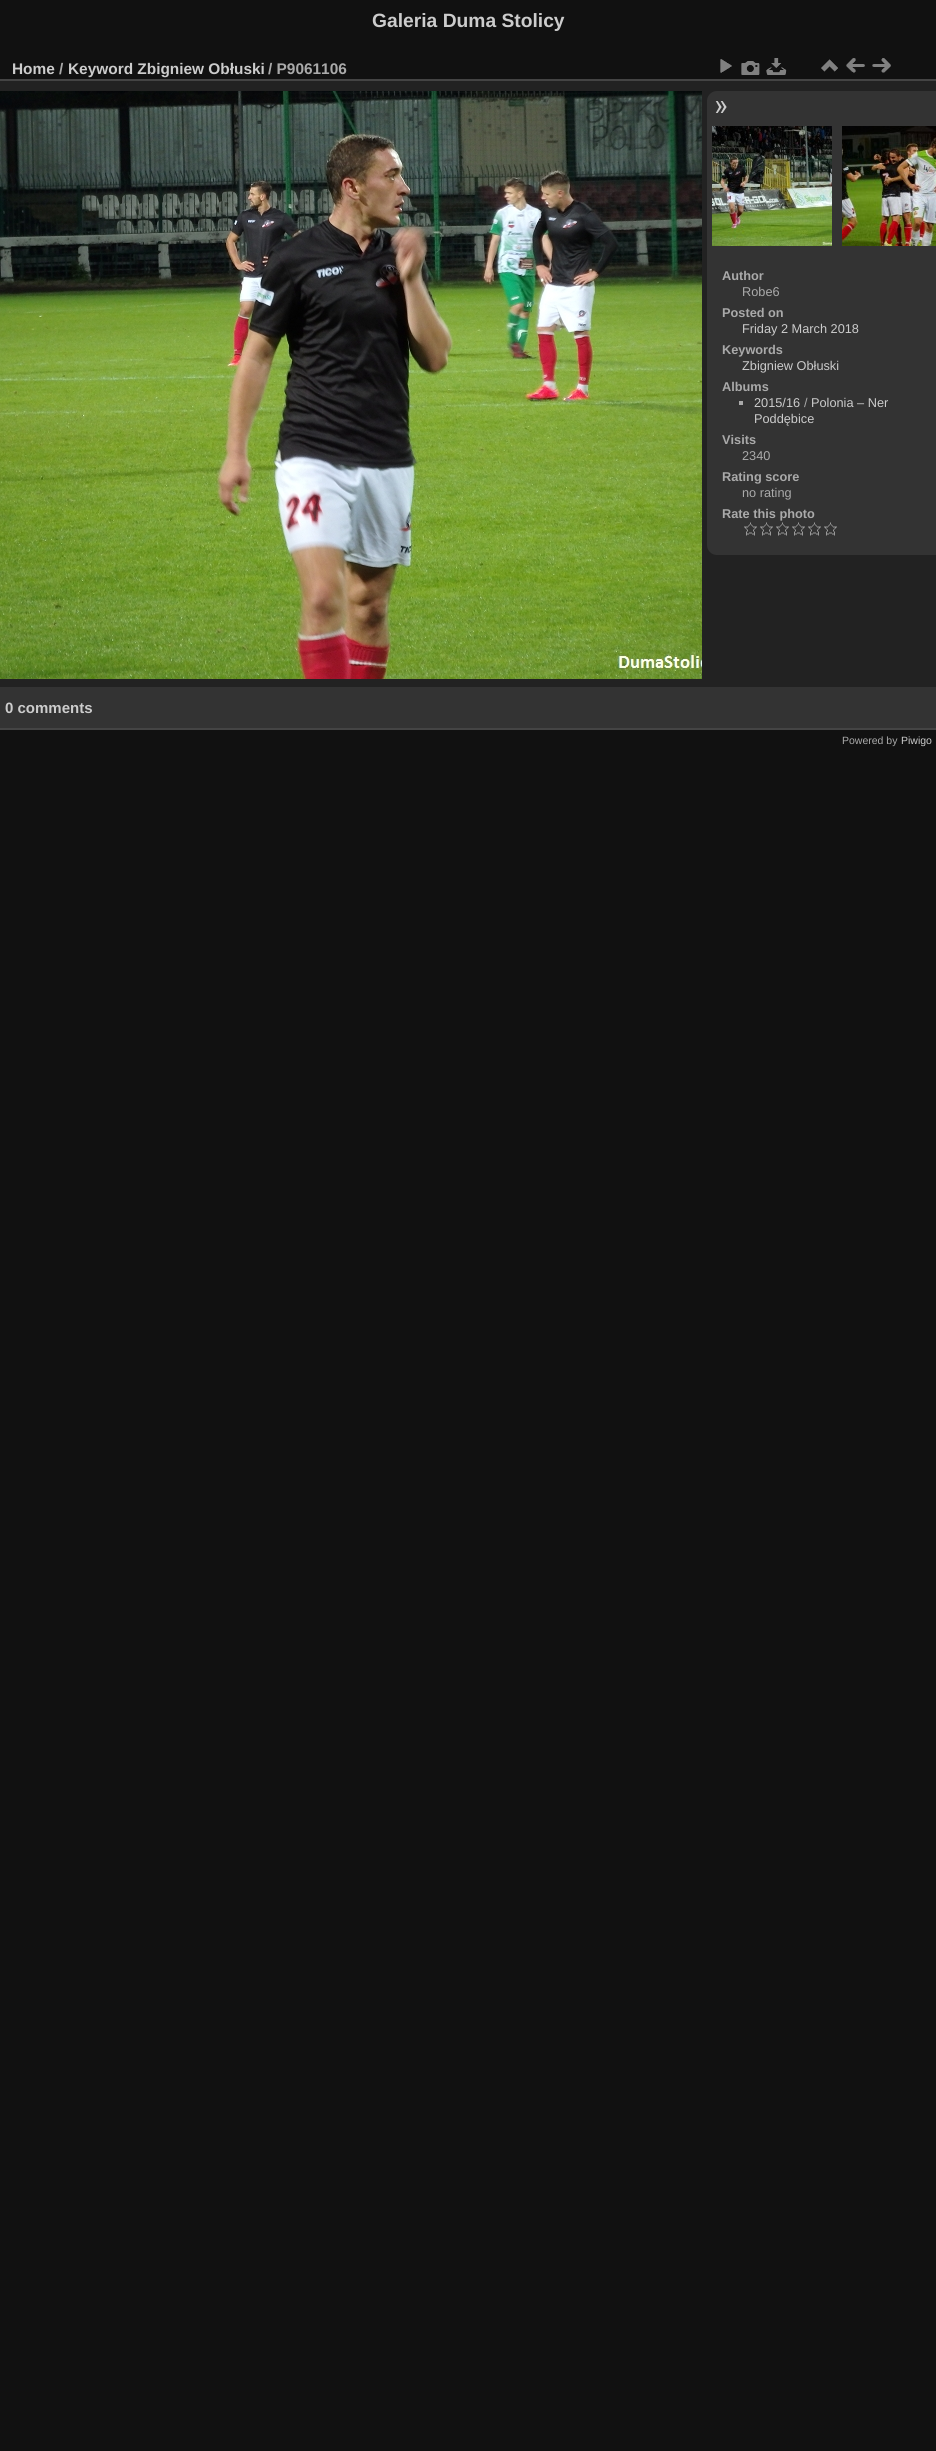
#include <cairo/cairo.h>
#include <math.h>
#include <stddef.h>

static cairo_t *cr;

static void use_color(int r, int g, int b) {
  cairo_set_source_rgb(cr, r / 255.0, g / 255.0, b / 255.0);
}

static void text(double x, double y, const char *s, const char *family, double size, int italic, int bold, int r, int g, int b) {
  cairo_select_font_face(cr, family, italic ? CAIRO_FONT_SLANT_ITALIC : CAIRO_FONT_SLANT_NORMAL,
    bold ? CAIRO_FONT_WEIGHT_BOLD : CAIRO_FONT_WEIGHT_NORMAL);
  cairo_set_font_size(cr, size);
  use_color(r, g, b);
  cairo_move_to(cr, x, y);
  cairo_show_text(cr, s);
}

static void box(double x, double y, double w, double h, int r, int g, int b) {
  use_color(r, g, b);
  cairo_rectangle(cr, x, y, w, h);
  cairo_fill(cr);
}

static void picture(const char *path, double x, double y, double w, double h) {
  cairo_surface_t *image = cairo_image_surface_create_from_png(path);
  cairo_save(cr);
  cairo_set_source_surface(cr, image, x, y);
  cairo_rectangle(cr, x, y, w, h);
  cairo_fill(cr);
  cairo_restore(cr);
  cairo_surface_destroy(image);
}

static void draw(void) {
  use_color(17, 17, 17);
  cairo_paint(cr);
  box(0, 81, 936, 606, 34, 34, 34);
  box(0, 728, 936, 2, 68, 68, 68);
  box(0, 79, 936, 2, 68, 68, 68);
  picture("img_01.png", 720, 59, 12, 14);
  picture("img_02.png", 741, 61, 19, 14);
  picture("img_03.png", 766, 58, 21, 17);
  picture("img_04.png", 821, 59, 17, 13);
  picture("img_05.png", 846, 58, 19, 15);
  picture("img_06.png", 872, 58, 19, 15);
  picture("img_07.png", 0, 91, 702, 588);
  use_color(51, 51, 51);
  cairo_new_path(cr);
  cairo_move_to(cr, 717, 91);
  cairo_line_to(cr, 936, 91);
  cairo_line_to(cr, 936, 555);
  cairo_line_to(cr, 717, 555);
  cairo_curve_to(cr, 711.5, 555, 707, 550.5, 707, 545);
  cairo_line_to(cr, 707, 101);
  cairo_curve_to(cr, 707, 95.5, 711.5, 91, 717, 91);
  cairo_close_path(cr);
  cairo_fill(cr);
  picture("img_08.png", 715, 101, 12, 12);
  picture("img_09.png", 712, 126, 120, 120);
  picture("img_10.png", 842, 126, 94, 120);
  box(739, 401, 4, 4, 170, 170, 170);
  picture("img_11.png", 744, 522, 13, 14);
  picture("img_11.png", 760, 522, 13, 14);
  picture("img_11.png", 776, 522, 13, 14);
  picture("img_11.png", 792, 522, 13, 14);
  picture("img_11.png", 808, 522, 13, 14);
  picture("img_11.png", 824, 522, 13, 14);
  box(0, 687, 936, 41, 51, 51, 51);
  text(372, 27, "Galeria Duma Stolicy", "Liberation Sans", 19.25, 0, 1, 204, 204, 204);
  text(12, 74, "Home", "Liberation Sans", 15.4, 0, 1, 204, 204, 204);
  text(59, 74, "/", "Liberation Sans", 15.4, 0, 1, 170, 170, 170);
  text(68, 74, "Keyword Zbigniew Obłuski", "Liberation Sans", 15.4, 0, 1, 204, 204, 204);
  text(268, 74, "/ P9061106", "Liberation Sans", 15.4, 0, 1, 170, 170, 170);
  text(722, 280, "Author", "Liberation Sans", 12.75, 0, 1, 170, 170, 170);
  text(742, 296, "Robe6", "Liberation Sans", 12.75, 0, 0, 170, 170, 170);
  text(722, 317, "Posted on", "Liberation Sans", 12.75, 0, 1, 170, 170, 170);
  text(742, 333, "Friday 2 March 2018", "Liberation Sans", 12.75, 0, 0, 204, 204, 204);
  text(722, 354, "Keywords", "Liberation Sans", 12.75, 0, 1, 170, 170, 170);
  text(742, 370, "Zbigniew Obłuski", "Liberation Sans", 12.75, 0, 0, 204, 204, 204);
  text(722, 391, "Albums", "Liberation Sans", 12.75, 0, 1, 170, 170, 170);
  text(754, 407, "2015/16", "Liberation Sans", 12.75, 0, 0, 204, 204, 204);
  text(804, 407, "/", "Liberation Sans", 12.75, 0, 0, 170, 170, 170);
  text(811, 407, "Polonia – Ner", "Liberation Sans", 12.75, 0, 0, 204, 204, 204);
  text(754, 423, "Poddębice", "Liberation Sans", 12.75, 0, 0, 204, 204, 204);
  text(722, 444, "Visits", "Liberation Sans", 12.75, 0, 1, 170, 170, 170);
  text(742, 460, "2340", "Liberation Sans", 12.75, 0, 0, 170, 170, 170);
  text(722, 481, "Rating score", "Liberation Sans", 12.75, 0, 1, 170, 170, 170);
  text(742, 497, "no rating", "Liberation Sans", 12.75, 0, 0, 170, 170, 170);
  text(722, 518, "Rate this photo", "Liberation Sans", 12.75, 0, 1, 170, 170, 170);
  text(5, 713, "0 comments", "Liberation Sans", 15, 0, 1, 204, 204, 204);
  text(842, 744, "Powered by", "Liberation Sans", 10.5, 0, 0, 170, 170, 170);
  text(901, 744, "Piwigo", "Liberation Sans", 10.5, 0, 0, 204, 204, 204);
}

int main(void) {
  cairo_surface_t *surface = cairo_image_surface_create(CAIRO_FORMAT_RGB24, 936, 2451);
  cr = cairo_create(surface);
  cairo_font_options_t *options = cairo_font_options_create();
  cairo_font_options_set_hint_metrics(options, CAIRO_HINT_METRICS_OFF);
  cairo_font_options_set_hint_style(options, CAIRO_HINT_STYLE_NONE);
  cairo_set_font_options(cr, options);
  cairo_set_miter_limit(cr, 4);
  draw();
  cairo_surface_write_to_png(surface, "out.png");
  cairo_font_options_destroy(options);
  cairo_destroy(cr);
  cairo_surface_destroy(surface);
  return 0;
}
